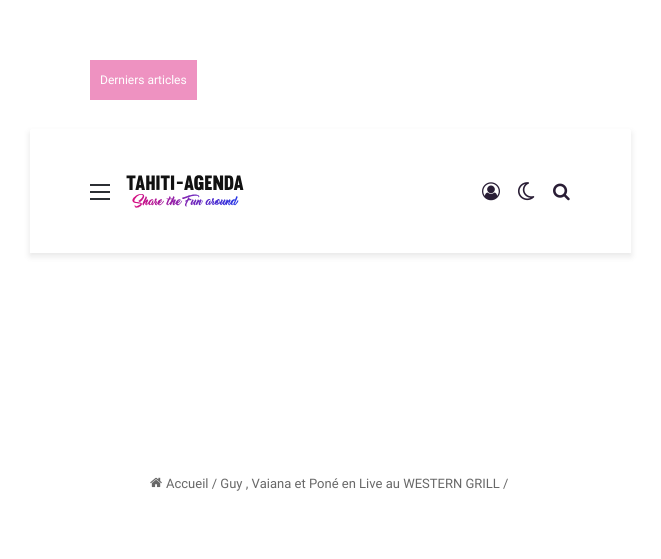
#include <cairo/cairo.h>
#include <math.h>
#include <stddef.h>

static cairo_t *cr;

static void use_color(int r, int g, int b) {
  cairo_set_source_rgb(cr, r / 255.0, g / 255.0, b / 255.0);
}

static void text(double x, double y, const char *s, const char *family, double size, int italic, int bold, int r, int g, int b) {
  cairo_select_font_face(cr, family, italic ? CAIRO_FONT_SLANT_ITALIC : CAIRO_FONT_SLANT_NORMAL,
    bold ? CAIRO_FONT_WEIGHT_BOLD : CAIRO_FONT_WEIGHT_NORMAL);
  cairo_set_font_size(cr, size);
  use_color(r, g, b);
  cairo_move_to(cr, x, y);
  cairo_show_text(cr, s);
}

static void box(double x, double y, double w, double h, int r, int g, int b) {
  use_color(r, g, b);
  cairo_rectangle(cr, x, y, w, h);
  cairo_fill(cr);
}

static void round_rect(double x, double y, double w, double h, double r) {
  cairo_new_sub_path(cr);
  cairo_arc(cr, x + w - r, y + h - r, r, 0, M_PI / 2);
  cairo_arc(cr, x + r, y + h - r, r, M_PI / 2, M_PI);
  cairo_arc(cr, x + r, y + r, r, M_PI, 1.5 * M_PI);
  cairo_arc(cr, x + w - r, y + r, r, 1.5 * M_PI, 2 * M_PI);
  cairo_close_path(cr);
}

static void shadow(double x, double y, double w, double h, double r, double blur, double alpha) {
  cairo_push_group_with_content(cr, CAIRO_CONTENT_ALPHA);
  cairo_set_operator(cr, CAIRO_OPERATOR_SOURCE);
  for (int i = 15; i >= -15 && fmin(w, h) + blur * i / 3 > 0; i -= 2) {
    double e = blur * i / 6;
    cairo_set_source_rgba(cr, 0, 0, 0, alpha * erfc((i - 1) / 8.5) / 2);
    round_rect(x - e, y - e, w + 2 * e, h + 2 * e, fmax(0, fmin(r + e + blur * .6, fmin(w, h) / 2 + e)));
    cairo_fill(cr);
  }
  cairo_pattern_t *soft = cairo_pop_group(cr);
  cairo_mask(cr, soft);
  cairo_pattern_destroy(soft);
}

static void picture(const char *path, double x, double y, double w, double h) {
  cairo_surface_t *image = cairo_image_surface_create_from_png(path);
  cairo_save(cr);
  cairo_set_source_surface(cr, image, x, y);
  cairo_rectangle(cr, x, y, w, h);
  cairo_fill(cr);
  cairo_restore(cr);
  cairo_surface_destroy(image);
}

static void draw(void) {
  use_color(255, 255, 255);
  cairo_paint(cr);
  cairo_save(cr);
  cairo_set_fill_rule(cr, CAIRO_FILL_RULE_EVEN_ODD);
  cairo_new_path(cr);
  cairo_move_to(cr, 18, 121);
  cairo_line_to(cr, 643, 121);
  cairo_line_to(cr, 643, 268);
  cairo_line_to(cr, 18, 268);
  cairo_close_path(cr);
  cairo_move_to(cr, 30, 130);
  cairo_line_to(cr, 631, 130);
  cairo_line_to(cr, 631, 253);
  cairo_line_to(cr, 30, 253);
  cairo_close_path(cr);
  cairo_clip(cr);
  use_color(0, 0, 0);
  shadow(30, 133, 601, 123, 0, 3.5, 0.1);
  cairo_restore(cr);
  box(31, 129, 599, 1, 255, 255, 255);
  box(90, 60, 107, 40, 238, 146, 193);
  box(90, 191, 20, 2, 44, 47, 52);
  box(90, 184, 20, 2, 44, 47, 52);
  box(90, 198, 20, 2, 44, 47, 52);
  picture("img_01.png", 126, 175, 118, 33);
  picture("img_02.png", 482, 182, 18, 19);
  picture("img_03.png", 518, 182, 17, 19);
  picture("img_04.png", 553, 183, 17, 18);
  picture("img_05.png", 150, 477, 12, 11);
  text(100, 84, "Derniers articles", "Roboto", 12, 0, 0, 255, 255, 255);
  text(166, 488, "Accueil / Guy , Vaiana et Poné en Live au WESTERN GRILL /", "Roboto", 13, 0, 0, 104, 104, 104);
}

int main(void) {
  cairo_surface_t *surface = cairo_image_surface_create(CAIRO_FORMAT_RGB24, 661, 559);
  cr = cairo_create(surface);
  cairo_font_options_t *options = cairo_font_options_create();
  cairo_font_options_set_hint_metrics(options, CAIRO_HINT_METRICS_OFF);
  cairo_font_options_set_hint_style(options, CAIRO_HINT_STYLE_NONE);
  cairo_set_font_options(cr, options);
  cairo_set_miter_limit(cr, 4);
  draw();
  cairo_surface_write_to_png(surface, "out.png");
  cairo_font_options_destroy(options);
  cairo_destroy(cr);
  cairo_surface_destroy(surface);
  return 0;
}
